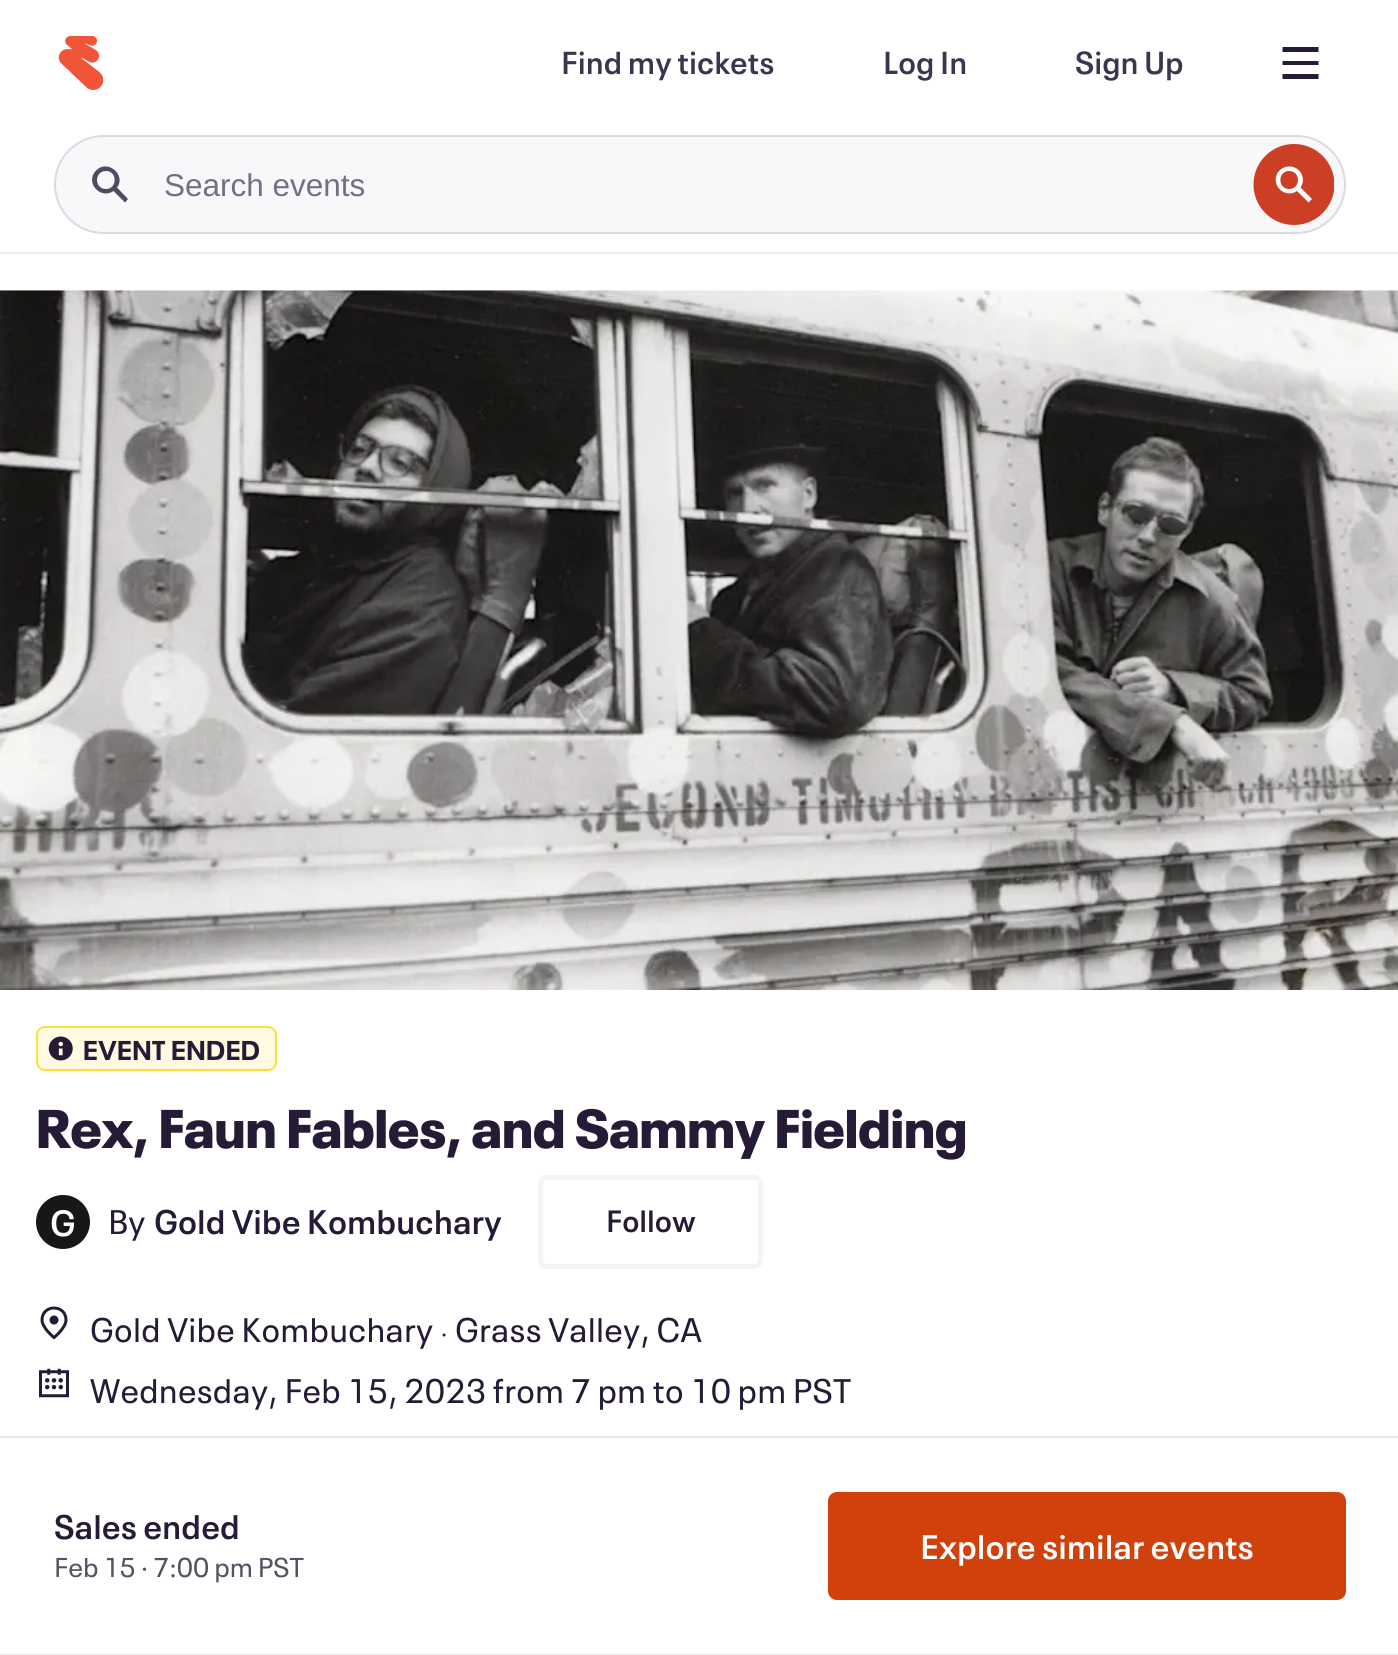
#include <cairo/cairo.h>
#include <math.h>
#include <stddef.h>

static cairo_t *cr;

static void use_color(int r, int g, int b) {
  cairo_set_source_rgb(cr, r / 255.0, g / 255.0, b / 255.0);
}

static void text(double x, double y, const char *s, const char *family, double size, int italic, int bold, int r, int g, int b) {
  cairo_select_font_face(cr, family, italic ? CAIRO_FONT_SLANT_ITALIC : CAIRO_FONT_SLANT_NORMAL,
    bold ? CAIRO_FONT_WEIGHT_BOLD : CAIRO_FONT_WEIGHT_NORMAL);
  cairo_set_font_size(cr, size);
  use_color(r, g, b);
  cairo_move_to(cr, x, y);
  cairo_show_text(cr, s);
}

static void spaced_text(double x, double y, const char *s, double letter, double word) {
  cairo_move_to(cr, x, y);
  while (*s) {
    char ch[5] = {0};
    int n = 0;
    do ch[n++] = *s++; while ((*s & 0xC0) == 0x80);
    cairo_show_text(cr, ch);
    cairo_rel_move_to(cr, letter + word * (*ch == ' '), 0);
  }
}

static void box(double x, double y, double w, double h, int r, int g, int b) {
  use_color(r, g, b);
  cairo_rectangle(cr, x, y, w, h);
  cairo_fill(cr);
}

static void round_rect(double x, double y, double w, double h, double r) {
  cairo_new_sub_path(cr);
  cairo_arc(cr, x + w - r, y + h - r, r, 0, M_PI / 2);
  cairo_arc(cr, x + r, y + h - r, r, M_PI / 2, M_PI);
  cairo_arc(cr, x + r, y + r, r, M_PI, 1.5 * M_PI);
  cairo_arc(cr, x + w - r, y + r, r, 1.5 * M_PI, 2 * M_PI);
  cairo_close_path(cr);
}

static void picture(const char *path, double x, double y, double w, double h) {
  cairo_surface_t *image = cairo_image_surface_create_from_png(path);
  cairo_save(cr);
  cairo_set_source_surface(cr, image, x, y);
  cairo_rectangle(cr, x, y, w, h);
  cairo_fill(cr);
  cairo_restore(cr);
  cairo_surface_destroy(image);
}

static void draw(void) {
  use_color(255, 255, 255);
  cairo_paint(cr);
  box(0, 252, 1398, 2, 238, 237, 242);
  picture("img_01.png", 58, 36, 46, 54);
  use_color(38, 27, 54);
  cairo_new_path(cr);
  cairo_move_to(cr, 1318.5, 47);
  cairo_line_to(cr, 1282.5, 47);
  cairo_line_to(cr, 1282.5, 52);
  cairo_line_to(cr, 1318.5, 52);
  cairo_close_path(cr);
  cairo_move_to(cr, 1282.5, 61);
  cairo_line_to(cr, 1318.5, 61);
  cairo_line_to(cr, 1318.5, 65);
  cairo_line_to(cr, 1282.5, 65);
  cairo_close_path(cr);
  cairo_move_to(cr, 1282.5, 74);
  cairo_line_to(cr, 1318.5, 74);
  cairo_line_to(cr, 1318.5, 79);
  cairo_line_to(cr, 1282.5, 79);
  cairo_close_path(cr);
  cairo_fill(cr);
  use_color(248, 247, 250);
  round_rect(55, 136, 1290, 97, 48.5);
  cairo_fill_preserve(cr);
  use_color(219, 218, 227);
  cairo_stroke(cr);
  use_color(75, 77, 99);
  cairo_set_fill_rule(cr, CAIRO_FILL_RULE_EVEN_ODD);
  cairo_new_path(cr);
  cairo_move_to(cr, 106, 189);
  cairo_curve_to(cr, 117.5, 189, 117.5, 171, 106, 171);
  cairo_curve_to(cr, 94, 171, 94, 189, 106, 189);
  cairo_close_path(cr);
  cairo_move_to(cr, 113.5, 191);
  cairo_curve_to(cr, 100.5, 200, 84.5, 182.5, 96, 170.5);
  cairo_curve_to(cr, 108, 158.5, 126.5, 175.5, 117, 187.5);
  cairo_line_to(cr, 128, 199);
  cairo_line_to(cr, 125, 202.5);
  cairo_close_path(cr);
  cairo_fill(cr);
  cairo_save(cr);
  cairo_set_fill_rule(cr, CAIRO_FILL_RULE_WINDING);
  cairo_rectangle(cr, 1253, 144, 81, 81);
  cairo_clip(cr);
  use_color(204, 63, 36);
  cairo_arc(cr, 1294, 184.5, 40.5, 0, 2 * M_PI);
  cairo_fill(cr);
  cairo_restore(cr);
  use_color(255, 255, 255);
  cairo_new_path(cr);
  cairo_move_to(cr, 1300.5, 187.5);
  cairo_curve_to(cr, 1304.5, 182, 1303.5, 174, 1298, 169.5);
  cairo_curve_to(cr, 1292.5, 165, 1284.5, 165.5, 1279.5, 170.5);
  cairo_curve_to(cr, 1274.5, 175.5, 1274.5, 183.5, 1279, 188.5);
  cairo_curve_to(cr, 1283.5, 194, 1291.5, 195, 1297, 191);
  cairo_line_to(cr, 1308.5, 202.5);
  cairo_line_to(cr, 1312, 199);
  cairo_close_path(cr);
  cairo_move_to(cr, 1289, 189);
  cairo_curve_to(cr, 1301, 189, 1301, 171, 1289, 171);
  cairo_curve_to(cr, 1277.5, 171, 1277.5, 189, 1289, 189);
  cairo_close_path(cr);
  cairo_fill(cr);
  picture("img_02.png", 0, 290, 1398, 700);
  use_color(255, 250, 224);
  round_rect(37, 1027, 239, 43, 8);
  cairo_fill_preserve(cr);
  use_color(255, 222, 59);
  cairo_stroke(cr);
  picture("img_03.png", 48, 1036, 25, 25);
  use_color(22, 23, 25);
  cairo_arc(cr, 63, 1222, 27, 0, 2 * M_PI);
  cairo_fill(cr);
  round_rect(540.5, 1177.5, 220, 89, 6.5);
  use_color(244, 244, 245);
  cairo_set_line_width(cr, 5);
  cairo_stroke(cr);
  picture("img_04.png", 40, 1306, 28, 34);
  picture("img_05.png", 39, 1368, 30, 30);
  box(0, 1436, 1398, 2, 232, 232, 231);
  box(0, 1654, 1398, 1, 232, 232, 231);
  use_color(209, 65, 12);
  round_rect(828, 1492, 518, 108, 9);
  cairo_fill(cr);
  text(561, 74, "Find my tickets", "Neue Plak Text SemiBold", 31.5, 0, 0, 57, 54, 79);
  text(883, 74, "Log In", "Neue Plak Text SemiBold", 31.5, 0, 0, 57, 54, 79);
  text(1075, 74, "Sign Up", "Neue Plak Text SemiBold", 31.5, 0, 0, 57, 54, 79);
  text(164, 196, "Search events", "Liberation Sans", 31.5, 0, 0, 111, 114, 135);
  cairo_select_font_face(cr, "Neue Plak", CAIRO_FONT_SLANT_NORMAL, CAIRO_FONT_WEIGHT_BOLD);
  cairo_set_font_size(cr, 27);
  use_color(38, 27, 54);
  spaced_text(83, 1060, "EVENT ENDED", 0.5, 0);
  text(36, 1148, "Rex, Faun Fables, and Sammy Fielding", "Neue Plak Black", 54, 0, 0, 38, 27, 54);
  text(50, 1236, "G", "Neue Plak Text SemiBold", 36, 0, 0, 255, 255, 255);
  text(108, 1234, "By", "Neue Plak Text", 33.75, 0, 0, 38, 27, 54);
  text(154, 1234, "Gold Vibe Kombuchary", "Neue Plak Text SemiBold", 33.75, 0, 0, 38, 27, 54);
  text(606, 1232, "Follow", "Neue Plak Text SemiBold", 30.5, 0, 0, 38, 27, 54);
  cairo_select_font_face(cr, "Neue Plak Text", CAIRO_FONT_SLANT_NORMAL, CAIRO_FONT_WEIGHT_NORMAL);
  cairo_set_font_size(cr, 33.75);
  spaced_text(90, 1342, "Gold Vibe Kombuchary", 0.25, 0);
  cairo_select_font_face(cr, "Liberation Sans", CAIRO_FONT_SLANT_NORMAL, CAIRO_FONT_WEIGHT_NORMAL);
  cairo_set_font_size(cr, 7);
  spaced_text(442, 1337, "●", 0.25, 0);
  cairo_select_font_face(cr, "Neue Plak Text", CAIRO_FONT_SLANT_NORMAL, CAIRO_FONT_WEIGHT_NORMAL);
  cairo_set_font_size(cr, 33.75);
  spaced_text(455, 1342, "Grass Valley, CA", 0.25, 0);
  spaced_text(90, 1403, "Wednesday, Feb 15, 2023 from 7 pm to 10 pm PST", 0.25, 0);
  text(54, 1539, "Sales ended", "Neue Plak Text SemiBold", 33.75, 0, 0, 38, 27, 54);
  text(54, 1577, "Feb 15 · 7:00 pm PST", "Neue Plak Text", 27, 0, 0, 88, 81, 99);
  text(920, 1559, "Explore similar events", "Neue Plak Text SemiBold", 33.75, 0, 0, 255, 255, 255);
}

int main(void) {
  cairo_surface_t *surface = cairo_image_surface_create(CAIRO_FORMAT_RGB24, 1398, 1655);
  cr = cairo_create(surface);
  cairo_font_options_t *options = cairo_font_options_create();
  cairo_font_options_set_hint_metrics(options, CAIRO_HINT_METRICS_OFF);
  cairo_font_options_set_hint_style(options, CAIRO_HINT_STYLE_NONE);
  cairo_set_font_options(cr, options);
  cairo_set_miter_limit(cr, 4);
  draw();
  cairo_surface_write_to_png(surface, "out.png");
  cairo_font_options_destroy(options);
  cairo_destroy(cr);
  cairo_surface_destroy(surface);
  return 0;
}
